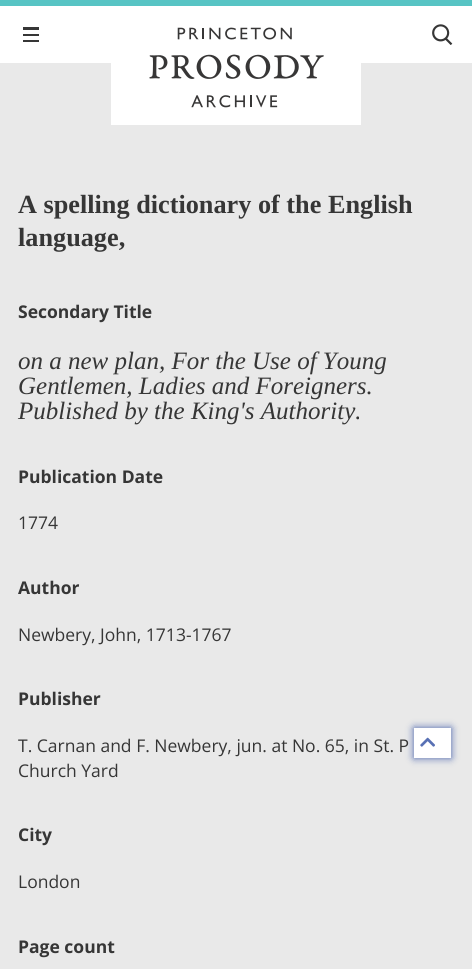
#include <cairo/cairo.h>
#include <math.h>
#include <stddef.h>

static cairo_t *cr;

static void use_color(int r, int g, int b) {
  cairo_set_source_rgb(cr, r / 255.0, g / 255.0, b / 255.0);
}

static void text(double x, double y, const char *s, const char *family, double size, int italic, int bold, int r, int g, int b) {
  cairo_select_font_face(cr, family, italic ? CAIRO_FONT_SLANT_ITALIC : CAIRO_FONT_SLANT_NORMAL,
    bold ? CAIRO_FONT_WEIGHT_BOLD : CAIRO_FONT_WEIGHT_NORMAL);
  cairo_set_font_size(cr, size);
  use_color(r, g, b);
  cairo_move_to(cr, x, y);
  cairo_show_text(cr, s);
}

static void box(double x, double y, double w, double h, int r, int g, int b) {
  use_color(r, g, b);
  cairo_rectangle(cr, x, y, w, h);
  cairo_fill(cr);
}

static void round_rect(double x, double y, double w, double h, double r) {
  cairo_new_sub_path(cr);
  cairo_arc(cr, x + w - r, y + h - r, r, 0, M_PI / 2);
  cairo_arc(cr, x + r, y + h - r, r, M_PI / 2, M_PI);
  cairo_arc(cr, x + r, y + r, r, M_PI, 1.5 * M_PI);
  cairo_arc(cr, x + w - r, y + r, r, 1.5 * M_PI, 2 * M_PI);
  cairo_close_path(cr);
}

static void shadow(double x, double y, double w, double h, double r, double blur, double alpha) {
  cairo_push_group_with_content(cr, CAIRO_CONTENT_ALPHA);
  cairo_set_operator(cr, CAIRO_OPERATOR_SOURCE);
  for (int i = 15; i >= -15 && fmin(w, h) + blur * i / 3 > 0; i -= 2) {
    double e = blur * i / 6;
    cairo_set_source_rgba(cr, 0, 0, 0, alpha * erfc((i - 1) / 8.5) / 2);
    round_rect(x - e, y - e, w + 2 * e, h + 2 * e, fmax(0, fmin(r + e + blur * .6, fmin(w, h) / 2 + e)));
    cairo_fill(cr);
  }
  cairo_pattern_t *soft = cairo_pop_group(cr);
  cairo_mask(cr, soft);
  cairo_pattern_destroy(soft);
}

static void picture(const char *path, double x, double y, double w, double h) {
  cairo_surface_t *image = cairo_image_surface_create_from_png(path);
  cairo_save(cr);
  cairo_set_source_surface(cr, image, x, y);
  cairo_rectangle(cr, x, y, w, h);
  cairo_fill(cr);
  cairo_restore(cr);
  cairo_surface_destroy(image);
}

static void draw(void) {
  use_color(233, 233, 233);
  cairo_paint(cr);
  box(0, 6, 472, 57, 255, 255, 255);
  box(0, 0, 472, 6, 87, 196, 196);
  box(23, 27, 16, 3, 54, 54, 54);
  box(23, 34, 16, 2, 54, 54, 54);
  box(23, 40, 16, 2, 54, 54, 54);
  box(111, 63, 250, 62, 255, 255, 255);
  picture("img_01.png", 149, 27, 175, 81);
  picture("img_02.png", 432, 24, 21, 21);
  use_color(70, 97, 172);
  shadow(414, 728, 37, 30, 0, 4, 1);
  box(414, 728, 37, 30, 255, 255, 255);
  picture("img_03.png", 420, 737, 15, 10);
  text(18, 213, "A spelling dictionary of the English", "Liberation Serif", 26.25, 0, 1, 54, 54, 54);
  text(18, 246, "language,", "Liberation Serif", 26.25, 0, 1, 54, 54, 54);
  text(18, 318, "Secondary Title", "Open Sans", 17.5, 0, 1, 54, 54, 54);
  text(18, 369, "on a new plan, For the Use of Young", "Liberation Serif", 25, 1, 0, 54, 54, 54);
  text(18, 394, "Gentlemen, Ladies and Foreigners.", "Liberation Serif", 25, 1, 0, 54, 54, 54);
  text(18, 419, "Published by the King's Authority.", "Liberation Serif", 25, 1, 0, 54, 54, 54);
  text(18, 483, "Publication Date", "Open Sans", 17.5, 0, 1, 54, 54, 54);
  text(18, 529, "1774", "Open Sans", 17.5, 0, 0, 54, 54, 54);
  text(18, 594, "Author", "Open Sans", 17.5, 0, 1, 54, 54, 54);
  text(18, 641, "Newbery, John, 1713-1767", "Open Sans", 17.5, 0, 0, 54, 54, 54);
  text(18, 705, "Publisher", "Open Sans", 17.5, 0, 1, 54, 54, 54);
  text(18, 752, "T. Carnan and F. Newbery, jun. at No. 65, in St. P", "Open Sans", 17.5, 0, 0, 54, 54, 54);
  text(18, 777, "Church Yard", "Open Sans", 17.5, 0, 0, 54, 54, 54);
  text(18, 841, "City", "Open Sans", 17.5, 0, 1, 54, 54, 54);
  text(18, 888, "London", "Open Sans", 17.5, 0, 0, 54, 54, 54);
  text(18, 953, "Page count", "Open Sans", 17.5, 0, 1, 54, 54, 54);
}

int main(void) {
  cairo_surface_t *surface = cairo_image_surface_create(CAIRO_FORMAT_RGB24, 472, 969);
  cr = cairo_create(surface);
  cairo_font_options_t *options = cairo_font_options_create();
  cairo_font_options_set_hint_metrics(options, CAIRO_HINT_METRICS_OFF);
  cairo_font_options_set_hint_style(options, CAIRO_HINT_STYLE_NONE);
  cairo_set_font_options(cr, options);
  cairo_set_miter_limit(cr, 4);
  draw();
  cairo_surface_write_to_png(surface, "out.png");
  cairo_font_options_destroy(options);
  cairo_destroy(cr);
  cairo_surface_destroy(surface);
  return 0;
}
